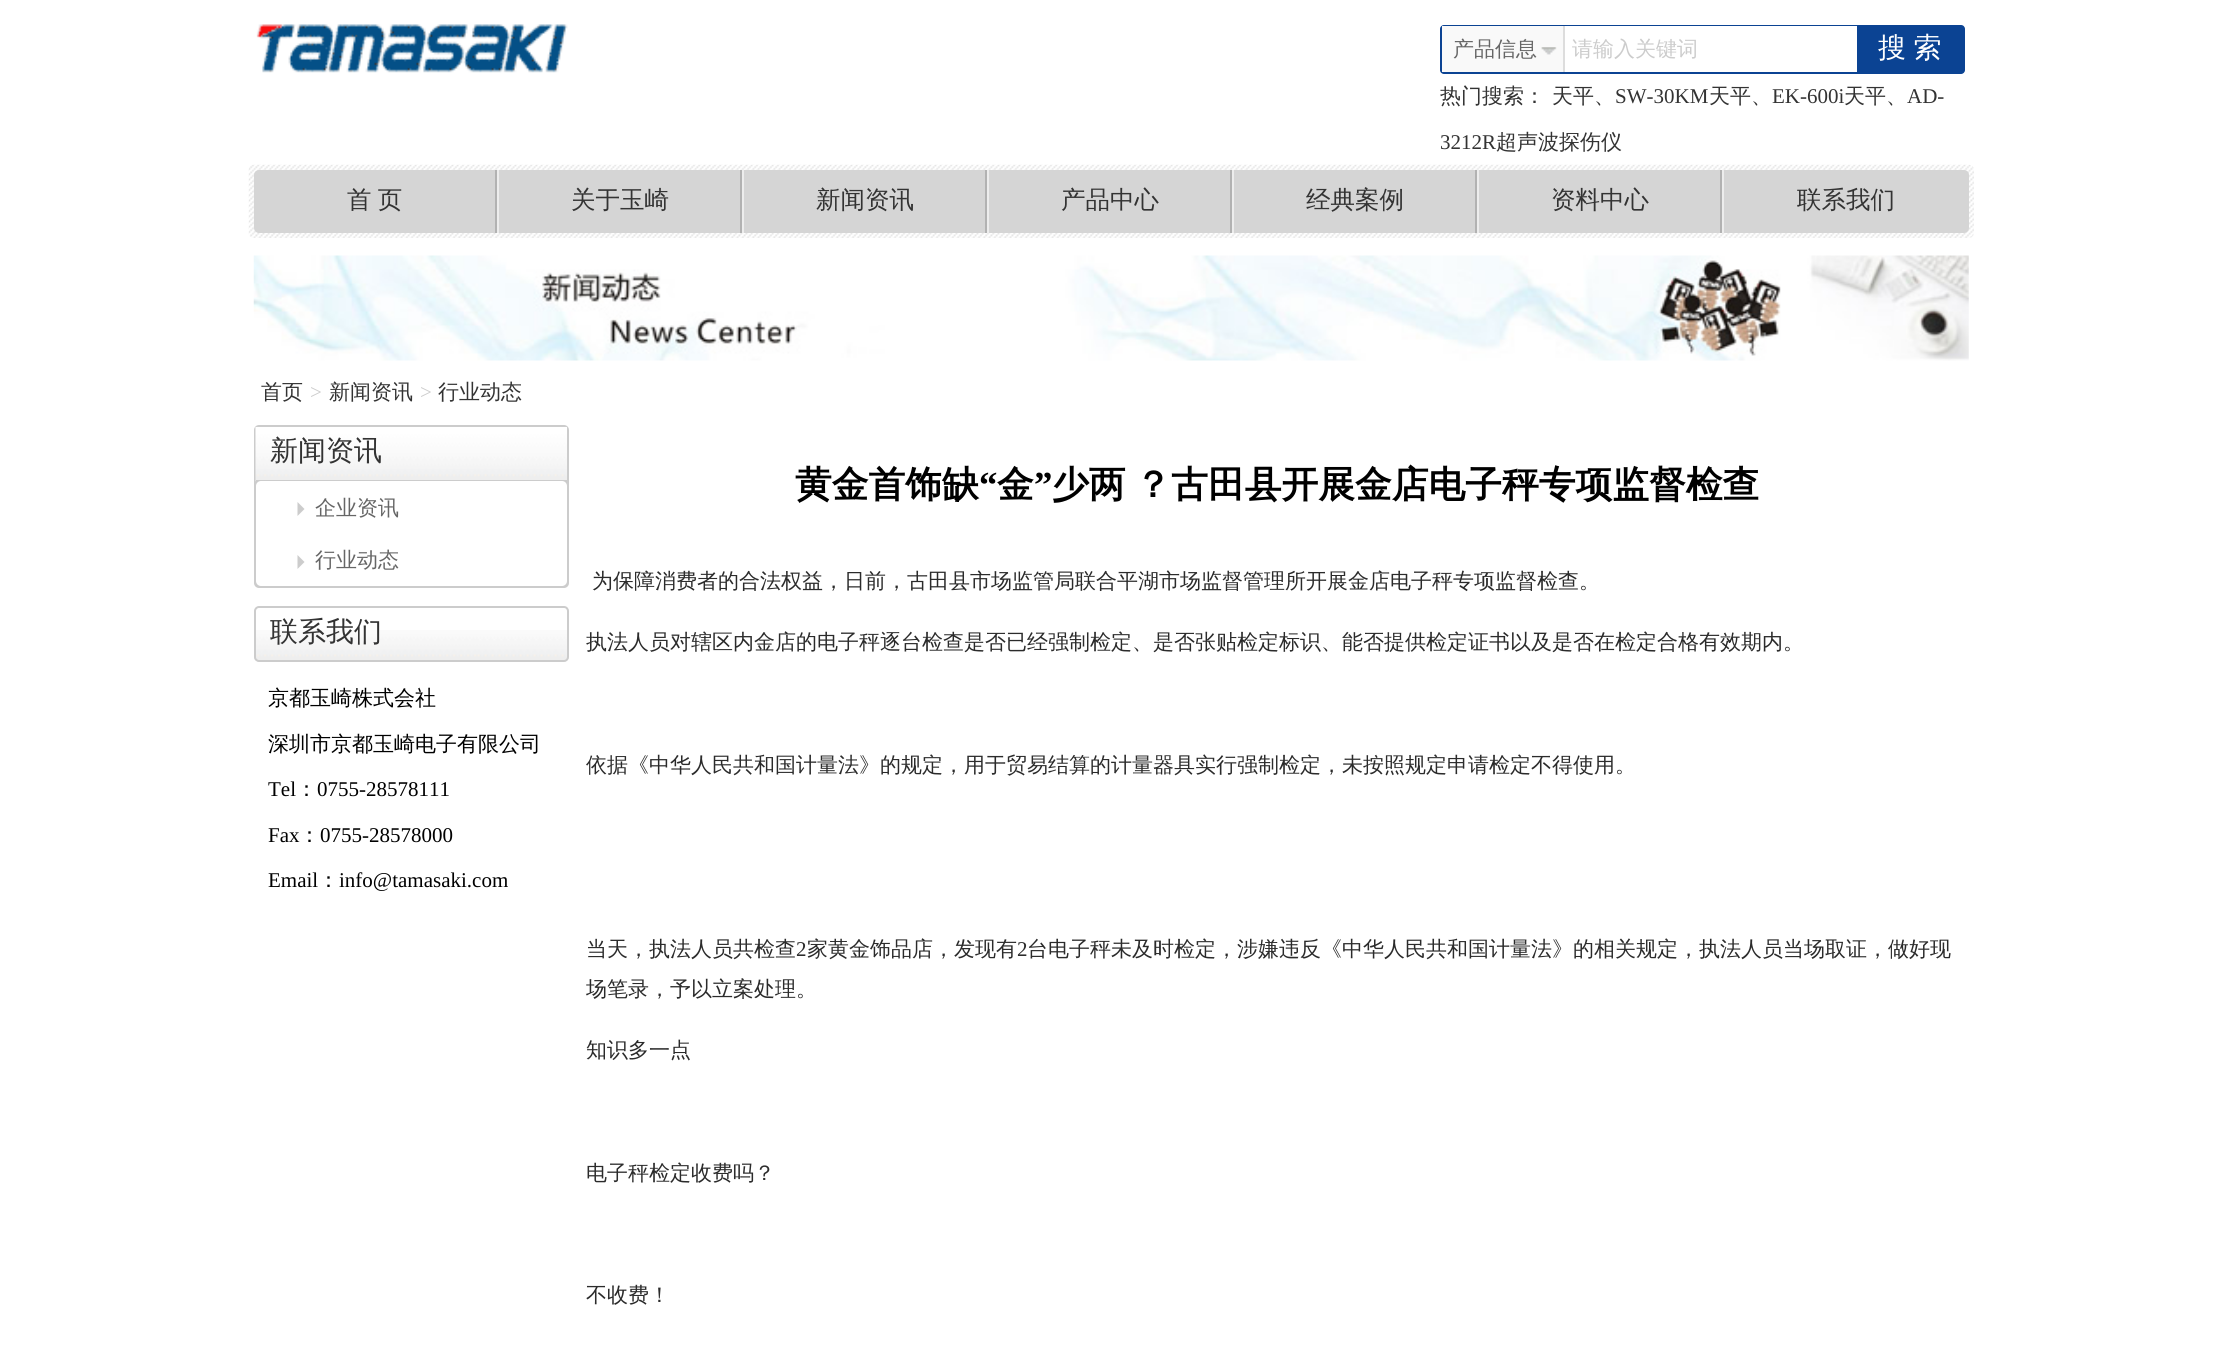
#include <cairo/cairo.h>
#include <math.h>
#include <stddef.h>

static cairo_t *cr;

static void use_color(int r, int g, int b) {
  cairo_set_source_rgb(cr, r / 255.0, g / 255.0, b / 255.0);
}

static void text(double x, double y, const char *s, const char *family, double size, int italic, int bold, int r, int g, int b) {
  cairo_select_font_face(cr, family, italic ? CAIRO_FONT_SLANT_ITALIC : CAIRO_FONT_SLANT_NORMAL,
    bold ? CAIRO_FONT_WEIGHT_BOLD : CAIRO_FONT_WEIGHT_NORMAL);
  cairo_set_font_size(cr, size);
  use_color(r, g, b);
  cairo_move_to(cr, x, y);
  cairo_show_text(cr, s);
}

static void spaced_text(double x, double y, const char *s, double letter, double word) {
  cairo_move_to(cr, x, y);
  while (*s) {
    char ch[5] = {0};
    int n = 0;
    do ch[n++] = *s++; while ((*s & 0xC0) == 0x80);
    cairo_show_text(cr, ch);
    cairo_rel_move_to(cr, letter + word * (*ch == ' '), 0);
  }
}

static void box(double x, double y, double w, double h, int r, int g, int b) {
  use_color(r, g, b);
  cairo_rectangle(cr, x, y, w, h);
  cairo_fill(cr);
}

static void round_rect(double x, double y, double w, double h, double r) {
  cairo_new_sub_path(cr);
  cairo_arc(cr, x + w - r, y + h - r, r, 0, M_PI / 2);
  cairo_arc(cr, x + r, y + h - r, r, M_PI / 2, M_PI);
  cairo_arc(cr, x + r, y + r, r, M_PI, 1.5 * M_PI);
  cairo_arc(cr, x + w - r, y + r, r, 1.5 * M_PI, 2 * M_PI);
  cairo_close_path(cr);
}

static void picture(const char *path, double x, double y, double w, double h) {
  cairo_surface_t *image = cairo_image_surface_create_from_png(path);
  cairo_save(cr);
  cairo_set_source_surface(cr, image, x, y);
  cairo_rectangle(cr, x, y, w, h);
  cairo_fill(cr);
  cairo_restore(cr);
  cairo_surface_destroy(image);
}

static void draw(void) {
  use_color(255, 255, 255);
  cairo_paint(cr);
  picture("img_01.png", 256, 24, 312, 49);
  use_color(11, 67, 147);
  round_rect(1440, 25, 525, 49, 4);
  cairo_fill(cr);
  box(1442, 26, 121, 46, 249, 249, 249);
  box(1563, 26, 2, 46, 221, 221, 221);
  picture("img_02.png", 1541, 47, 16, 8);
  box(1565, 26, 292, 46, 255, 255, 255);
  picture("img_03.png", 248, 164, 1726, 74);
  use_color(213, 213, 213);
  round_rect(254, 170, 1715, 63, 5);
  cairo_fill(cr);
  box(497, 170, 2, 63, 237, 237, 237);
  box(495, 170, 2, 63, 178, 178, 178);
  box(742, 170, 2, 63, 237, 237, 237);
  box(740, 170, 2, 63, 178, 178, 178);
  box(987, 170, 2, 63, 237, 237, 237);
  box(985, 170, 2, 63, 178, 178, 178);
  box(1232, 170, 2, 63, 237, 237, 237);
  box(1230, 170, 2, 63, 178, 178, 178);
  box(1477, 170, 2, 63, 237, 237, 237);
  box(1475, 170, 2, 63, 178, 178, 178);
  box(1722, 170, 2, 63, 237, 237, 237);
  box(1720, 170, 2, 63, 178, 178, 178);
  picture("img_04.png", 253, 255, 1716, 106);
  use_color(204, 204, 204);
  round_rect(254, 425, 315, 163, 5);
  cairo_fill(cr);
  picture("img_05.png", 255, 427, 312, 55);
  box(256, 480, 311, 2, 204, 204, 204);
  use_color(255, 255, 255);
  round_rect(256, 481, 311, 105, 5);
  cairo_fill(cr);
  use_color(204, 204, 204);
  cairo_new_path(cr);
  cairo_move_to(cr, 297.5, 516);
  cairo_line_to(cr, 297.5, 502);
  cairo_line_to(cr, 304.5, 509);
  cairo_close_path(cr);
  cairo_fill(cr);
  cairo_new_path(cr);
  cairo_move_to(cr, 297.5, 569);
  cairo_line_to(cr, 297.5, 555);
  cairo_line_to(cr, 304.5, 562);
  cairo_close_path(cr);
  cairo_fill(cr);
  picture("img_06.png", 254, 630, 315, 32);
  round_rect(255, 607, 313, 54, 4);
  cairo_stroke(cr);
  text(1453, 56, "产品信息", "WenQuanYi Zen Hei Medium", 21, 0, 0, 102, 102, 102);
  cairo_set_font_size(cr, 28);
  use_color(255, 255, 255);
  spaced_text(1878, 57, "搜 索", 0, -1);
  text(1572, 56, "请输入关键词", "WenQuanYi Zen Hei Medium", 21, 0, 0, 204, 204, 204);
  text(1440, 103, "热门搜索：", "WenQuanYi Zen Hei Medium", 21, 0, 0, 51, 51, 51);
  text(1552, 103, "天平、", "WenQuanYi Zen Hei Medium", 21, 0, 0, 51, 51, 51);
  text(1615, 103, "SW-30KM", "Liberation Serif", 21, 0, 0, 51, 51, 51);
  text(1709, 103, "天平、", "WenQuanYi Zen Hei Medium", 21, 0, 0, 51, 51, 51);
  text(1772, 103, "EK-600i", "Liberation Serif", 21, 0, 0, 51, 51, 51);
  text(1844, 103, "天平、", "WenQuanYi Zen Hei Medium", 21, 0, 0, 51, 51, 51);
  text(1907, 103, "AD-", "Liberation Serif", 21, 0, 0, 51, 51, 51);
  text(1440, 149, "3212R", "Liberation Serif", 21, 0, 0, 51, 51, 51);
  text(1496, 149, "超声波探伤仪", "WenQuanYi Zen Hei Medium", 21, 0, 0, 51, 51, 51);
  cairo_set_font_size(cr, 24.5);
  spaced_text(347, 208, "首 页", 0, -1);
  text(571, 208, "关于玉崎", "WenQuanYi Zen Hei Medium", 24.5, 0, 0, 51, 51, 51);
  text(816, 208, "新闻资讯", "WenQuanYi Zen Hei Medium", 24.5, 0, 0, 51, 51, 51);
  text(1061, 208, "产品中心", "WenQuanYi Zen Hei Medium", 24.5, 0, 0, 51, 51, 51);
  text(1306, 208, "经典案例", "WenQuanYi Zen Hei Medium", 24.5, 0, 0, 51, 51, 51);
  text(1551, 208, "资料中心", "WenQuanYi Zen Hei Medium", 24.5, 0, 0, 51, 51, 51);
  text(1797, 208, "联系我们", "WenQuanYi Zen Hei Medium", 24.5, 0, 0, 51, 51, 51);
  text(261, 399, "首页", "WenQuanYi Zen Hei Medium", 21, 0, 0, 51, 51, 51);
  text(310, 399, ">", "Liberation Serif", 21, 0, 0, 204, 204, 204);
  text(329, 399, "新闻资讯", "WenQuanYi Zen Hei Medium", 21, 0, 0, 51, 51, 51);
  text(420, 399, ">", "Liberation Serif", 21, 0, 0, 204, 204, 204);
  text(438, 399, "行业动态", "WenQuanYi Zen Hei Medium", 21, 0, 0, 51, 51, 51);
  text(270, 460, "新闻资讯", "WenQuanYi Zen Hei Medium", 28, 0, 0, 51, 51, 51);
  text(315, 515, "企业资讯", "WenQuanYi Zen Hei Medium", 21, 0, 0, 102, 102, 102);
  text(315, 567, "行业动态", "WenQuanYi Zen Hei Medium", 21, 0, 0, 102, 102, 102);
  text(270, 641, "联系我们", "WenQuanYi Zen Hei Medium", 28, 0, 0, 51, 51, 51);
  text(268, 705, "京都玉崎株式会社", "WenQuanYi Zen Hei Medium", 21, 0, 0, 0, 0, 0);
  text(268, 751, "深圳市京都玉崎电子有限公司", "WenQuanYi Zen Hei Medium", 21, 0, 0, 0, 0, 0);
  text(268, 796, "Tel", "Liberation Serif", 21, 0, 0, 0, 0, 0);
  text(296, 796, "：", "WenQuanYi Zen Hei Medium", 21, 0, 0, 0, 0, 0);
  text(317, 796, "0755-28578111", "Liberation Serif", 21, 0, 0, 0, 0, 0);
  text(268, 842, "Fax", "Liberation Serif", 21, 0, 0, 0, 0, 0);
  text(299, 842, "：", "WenQuanYi Zen Hei Medium", 21, 0, 0, 0, 0, 0);
  text(320, 842, "0755-28578000", "Liberation Serif", 21, 0, 0, 0, 0, 0);
  text(268, 887, "Email", "Liberation Serif", 21, 0, 0, 0, 0, 0);
  text(318, 887, "：", "WenQuanYi Zen Hei Medium", 21, 0, 0, 0, 0, 0);
  text(339, 887, "info@tamasaki.com", "Liberation Serif", 21, 0, 0, 0, 0, 0);
  text(795, 497, "黄金首饰缺", "WenQuanYi Zen Hei", 36.75, 0, 1, 0, 0, 0);
  text(979, 497, "“", "Liberation Serif", 36.75, 0, 1, 0, 0, 0);
  text(997, 497, "金", "WenQuanYi Zen Hei", 36.75, 0, 1, 0, 0, 0);
  text(1034, 497, "”", "Liberation Serif", 36.75, 0, 1, 0, 0, 0);
  cairo_select_font_face(cr, "WenQuanYi Zen Hei", CAIRO_FONT_SLANT_NORMAL, CAIRO_FONT_WEIGHT_BOLD);
  spaced_text(1052, 497, "少两 ？古田县开展金店电子秤专项监督检查", 0, -2);
  text(592, 588, "为保障消费者的合法权益，日前，古田县市场监管局联合平湖市场监督管理所开展金店电子秤专项监督检查。", "WenQuanYi Zen Hei Medium", 21, 0, 0, 43, 43, 43);
  text(586, 649, "执法人员对辖区内金店的电子秤逐台检查是否已经强制检定、是否张贴检定标识、能否提供检定证书以及是否在检定合格有效期内。", "WenQuanYi Zen Hei Medium", 21, 0, 0, 43, 43, 43);
  text(586, 772, "依据《中华人民共和国计量法》的规定，用于贸易结算的计量器具实行强制检定，未按照规定申请检定不得使用。", "WenQuanYi Zen Hei Medium", 21, 0, 0, 43, 43, 43);
  text(586, 956, "当天，执法人员共检查", "WenQuanYi Zen Hei Medium", 21, 0, 0, 43, 43, 43);
  text(796, 956, "2", "Liberation Serif", 21, 0, 0, 43, 43, 43);
  text(807, 956, "家黄金饰品店，发现有", "WenQuanYi Zen Hei Medium", 21, 0, 0, 43, 43, 43);
  text(1017, 956, "2", "Liberation Serif", 21, 0, 0, 43, 43, 43);
  text(1027, 956, "台电子秤未及时检定，涉嫌违反《中华人民共和国计量法》的相关规定，执法人员当场取证，做好现", "WenQuanYi Zen Hei Medium", 21, 0, 0, 43, 43, 43);
  text(586, 996, "场笔录，予以立案处理。", "WenQuanYi Zen Hei Medium", 21, 0, 0, 43, 43, 43);
  text(586, 1057, "知识多一点", "WenQuanYi Zen Hei Medium", 21, 0, 0, 43, 43, 43);
  text(586, 1180, "电子秤检定收费吗？", "WenQuanYi Zen Hei Medium", 21, 0, 0, 43, 43, 43);
  text(586, 1302, "不收费！", "WenQuanYi Zen Hei Medium", 21, 0, 0, 43, 43, 43);
}

int main(void) {
  cairo_surface_t *surface = cairo_image_surface_create(CAIRO_FORMAT_RGB24, 2221, 1345);
  cr = cairo_create(surface);
  cairo_font_options_t *options = cairo_font_options_create();
  cairo_font_options_set_hint_metrics(options, CAIRO_HINT_METRICS_OFF);
  cairo_font_options_set_hint_style(options, CAIRO_HINT_STYLE_NONE);
  cairo_set_font_options(cr, options);
  cairo_set_miter_limit(cr, 4);
  draw();
  cairo_surface_write_to_png(surface, "out.png");
  cairo_font_options_destroy(options);
  cairo_destroy(cr);
  cairo_surface_destroy(surface);
  return 0;
}
